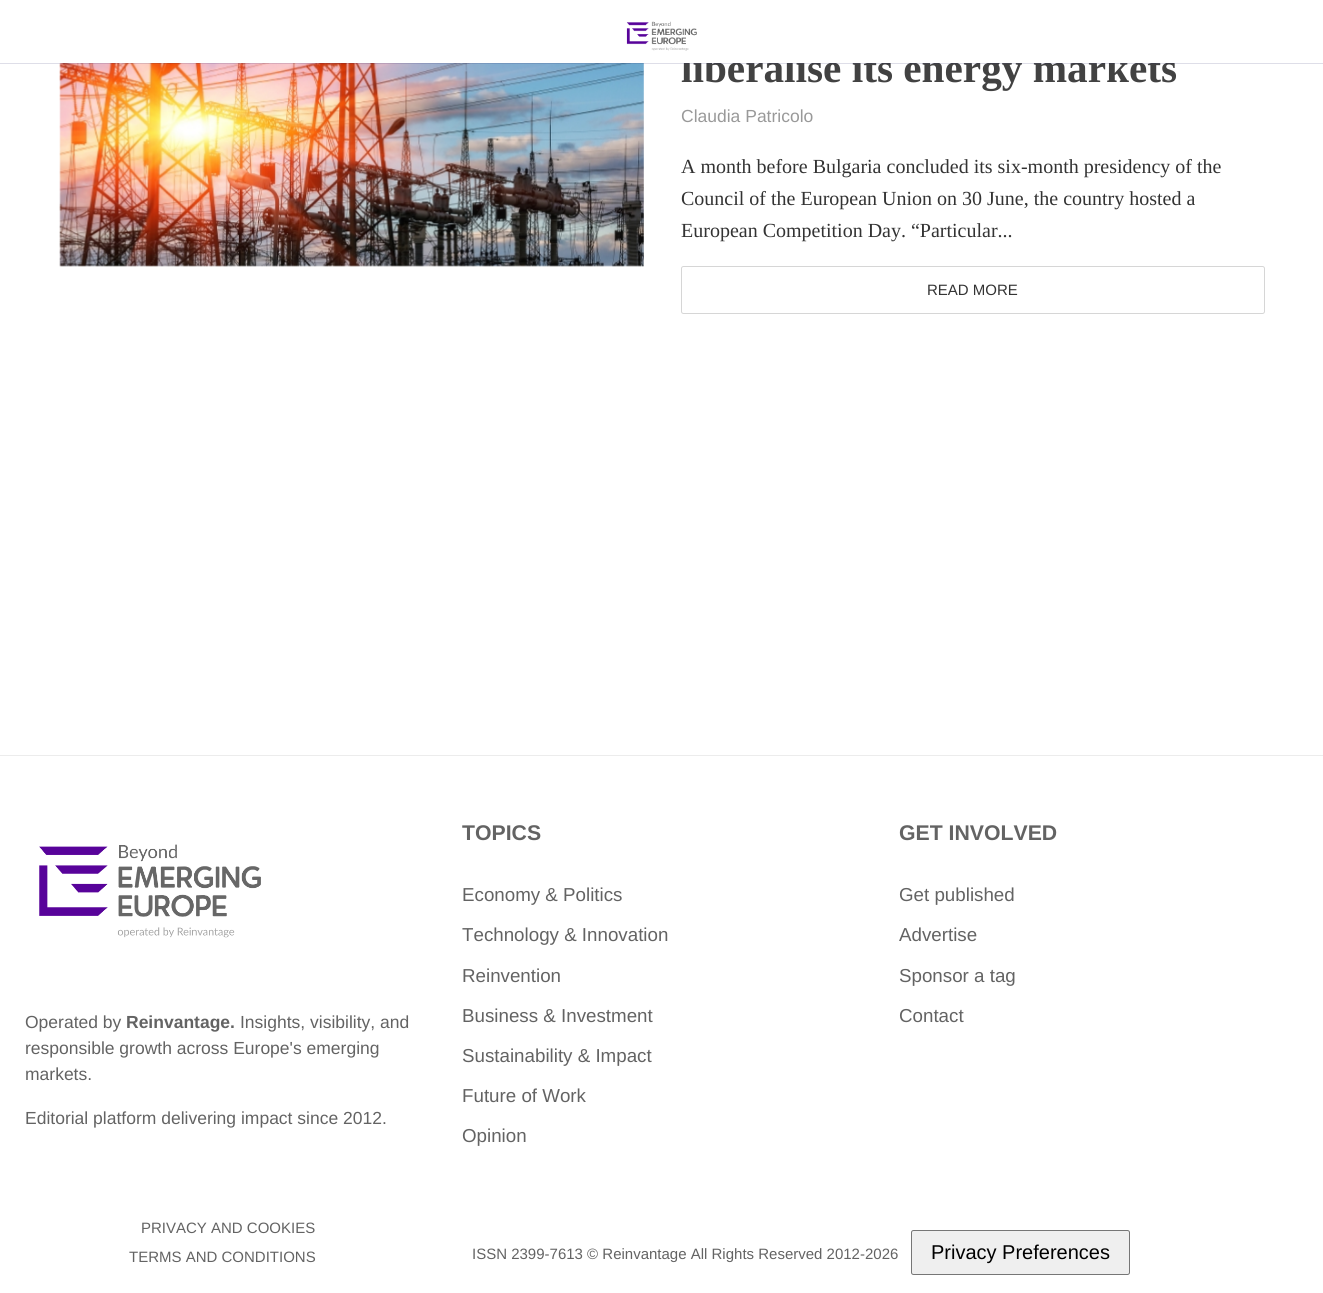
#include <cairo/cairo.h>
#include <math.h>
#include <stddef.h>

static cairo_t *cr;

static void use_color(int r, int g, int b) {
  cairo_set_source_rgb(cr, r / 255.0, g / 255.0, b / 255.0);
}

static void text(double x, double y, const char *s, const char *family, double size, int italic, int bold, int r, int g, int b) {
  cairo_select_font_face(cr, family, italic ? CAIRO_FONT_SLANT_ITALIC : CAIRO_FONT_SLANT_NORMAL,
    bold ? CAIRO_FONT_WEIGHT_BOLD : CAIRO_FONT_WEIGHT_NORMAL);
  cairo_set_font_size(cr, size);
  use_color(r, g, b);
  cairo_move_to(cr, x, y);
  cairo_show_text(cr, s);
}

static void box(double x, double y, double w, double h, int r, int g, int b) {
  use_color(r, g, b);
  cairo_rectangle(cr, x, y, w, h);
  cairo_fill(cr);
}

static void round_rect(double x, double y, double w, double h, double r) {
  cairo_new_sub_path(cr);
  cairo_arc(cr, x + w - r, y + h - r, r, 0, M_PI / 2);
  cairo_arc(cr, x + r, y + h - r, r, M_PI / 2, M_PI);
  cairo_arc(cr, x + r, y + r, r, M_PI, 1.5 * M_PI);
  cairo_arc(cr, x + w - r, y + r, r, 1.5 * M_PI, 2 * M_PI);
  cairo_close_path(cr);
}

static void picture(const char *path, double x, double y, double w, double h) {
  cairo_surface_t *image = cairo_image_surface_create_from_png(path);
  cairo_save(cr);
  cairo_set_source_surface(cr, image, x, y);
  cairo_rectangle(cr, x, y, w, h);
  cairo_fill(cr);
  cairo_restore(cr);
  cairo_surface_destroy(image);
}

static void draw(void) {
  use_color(255, 255, 255);
  cairo_paint(cr);
  picture("img_01.png", 626, 21, 71, 30);
  box(60, 63, 584, 203, 243, 243, 243);
  picture("img_02.png", 59, 63, 585, 204);
  round_rect(681.5, 266.5, 583, 47, 2);
  use_color(214, 214, 214);
  cairo_set_line_width(cr, 1);
  cairo_stroke(cr);
  box(0, 755, 1323, 1, 236, 236, 236);
  picture("img_03.png", 39, 844, 222, 94);
  use_color(239, 239, 239);
  round_rect(911.5, 1230.5, 218, 44, 2);
  cairo_fill_preserve(cr);
  use_color(118, 118, 118);
  cairo_stroke(cr);
  text(681, 82, "liberalise its energy markets", "Liberation Serif", 41.25, 0, 1, 66, 66, 66);
  cairo_set_source_rgba(cr, 0.149, 0.141, 0.392, 0.15);
  cairo_new_path(cr);
  cairo_move_to(cr, 0, -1);
  cairo_line_to(cr, 0, 0);
  cairo_line_to(cr, 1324, 0);
  cairo_line_to(cr, 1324, 62);
  cairo_line_to(cr, 0, 62);
  cairo_line_to(cr, 0, 64);
  cairo_line_to(cr, 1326, 64);
  cairo_line_to(cr, 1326, -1);
  cairo_close_path(cr);
  cairo_fill(cr);
  box(0, 53, 1323, 10, 255, 255, 255);
  text(681, 122, "Claudia Patricolo", "Liberation Sans", 17.5, 0, 0, 153, 153, 153);
  text(681, 173, "A month before Bulgaria concluded its six-month presidency of the", "Liberation Serif", 20, 0, 0, 51, 51, 51);
  text(681, 205, "Council of the European Union on 30 June, the country hosted a", "Liberation Serif", 20, 0, 0, 51, 51, 51);
  text(681, 237, "European Competition Day. “Particular...", "Liberation Serif", 20, 0, 0, 51, 51, 51);
  text(927, 295, "READ MORE", "Liberation Sans", 15, 0, 0, 51, 51, 51);
  text(462, 840, "TOPICS", "Liberation Sans", 21.25, 0, 1, 99, 99, 99);
  text(462, 901, "Economy & Politics", "Liberation Sans", 18.75, 0, 0, 99, 99, 99);
  text(462, 941, "Technology & Innovation", "Liberation Sans", 18.75, 0, 0, 99, 99, 99);
  text(462, 982, "Reinvention", "Liberation Sans", 18.75, 0, 0, 99, 99, 99);
  text(462, 1022, "Business & Investment", "Liberation Sans", 18.75, 0, 0, 99, 99, 99);
  text(462, 1062, "Sustainability & Impact", "Liberation Sans", 18.75, 0, 0, 99, 99, 99);
  text(462, 1102, "Future of Work", "Liberation Sans", 18.75, 0, 0, 99, 99, 99);
  text(462, 1142, "Opinion", "Liberation Sans", 18.75, 0, 0, 99, 99, 99);
  text(899, 840, "GET INVOLVED", "Liberation Sans", 21.25, 0, 1, 99, 99, 99);
  text(899, 901, "Get published", "Liberation Sans", 18.75, 0, 0, 99, 99, 99);
  text(899, 941, "Advertise", "Liberation Sans", 18.75, 0, 0, 99, 99, 99);
  text(899, 982, "Sponsor a tag", "Liberation Sans", 18.75, 0, 0, 99, 99, 99);
  text(899, 1022, "Contact", "Liberation Sans", 18.75, 0, 0, 99, 99, 99);
  text(25, 1028, "Operated by", "Liberation Sans", 17.5, 0, 0, 99, 99, 99);
  text(126, 1028, "Reinvantage.", "Liberation Sans", 17.5, 0, 1, 99, 99, 99);
  text(240, 1028, "Insights, visibility, and", "Liberation Sans", 17.5, 0, 0, 99, 99, 99);
  text(25, 1054, "responsible growth across Europe's emerging", "Liberation Sans", 17.5, 0, 0, 99, 99, 99);
  text(25, 1080, "markets.", "Liberation Sans", 17.5, 0, 0, 99, 99, 99);
  text(25, 1124, "Editorial platform delivering impact since 2012.", "Liberation Sans", 17.5, 0, 0, 99, 99, 99);
  text(141, 1233, "PRIVACY AND COOKIES", "Liberation Sans", 15, 0, 0, 99, 99, 99);
  text(129, 1262, "TERMS AND CONDITIONS", "Liberation Sans", 15, 0, 0, 99, 99, 99);
  text(472, 1259, "ISSN 2399-7613 © Reinvantage All Rights Reserved 2012-2026", "Liberation Sans", 15, 0, 0, 99, 99, 99);
  text(931, 1259, "Privacy Preferences", "Liberation Sans", 20, 0, 0, 0, 0, 0);
}

int main(void) {
  cairo_surface_t *surface = cairo_image_surface_create(CAIRO_FORMAT_RGB24, 1323, 1293);
  cr = cairo_create(surface);
  cairo_font_options_t *options = cairo_font_options_create();
  cairo_font_options_set_hint_metrics(options, CAIRO_HINT_METRICS_OFF);
  cairo_font_options_set_hint_style(options, CAIRO_HINT_STYLE_NONE);
  cairo_set_font_options(cr, options);
  cairo_set_miter_limit(cr, 4);
  draw();
  cairo_surface_write_to_png(surface, "out.png");
  cairo_font_options_destroy(options);
  cairo_destroy(cr);
  cairo_surface_destroy(surface);
  return 0;
}
